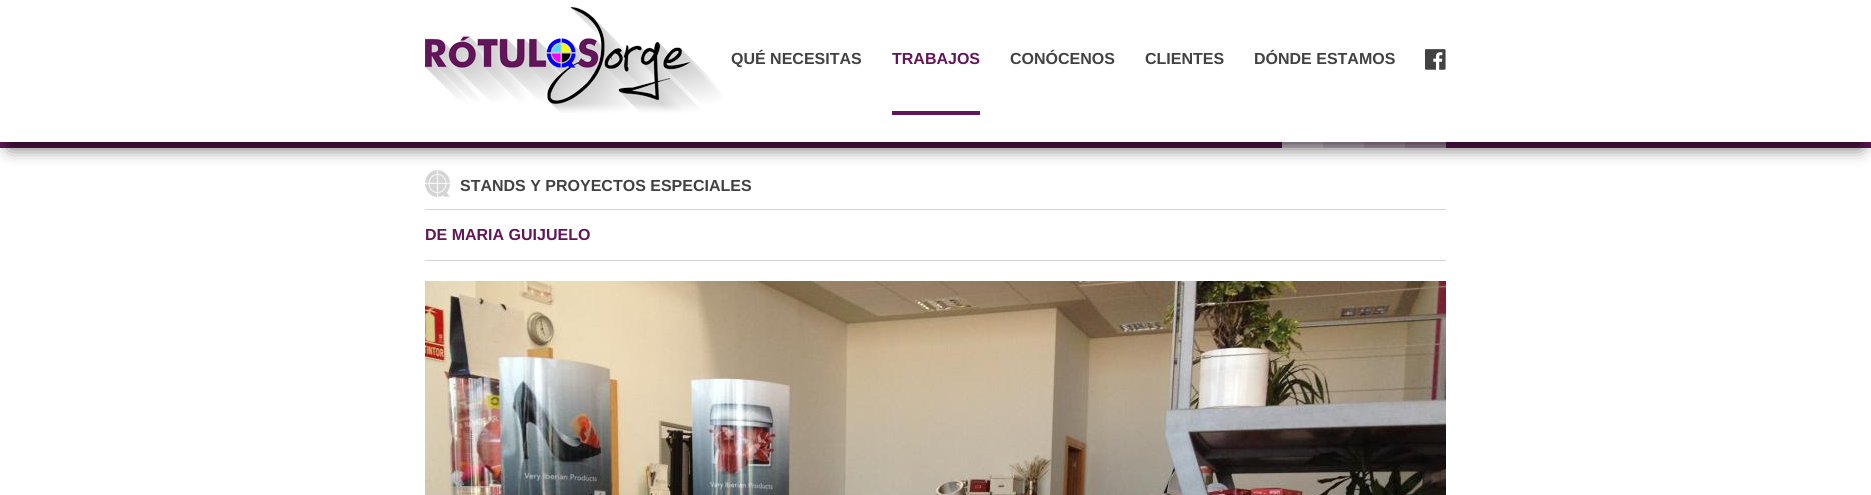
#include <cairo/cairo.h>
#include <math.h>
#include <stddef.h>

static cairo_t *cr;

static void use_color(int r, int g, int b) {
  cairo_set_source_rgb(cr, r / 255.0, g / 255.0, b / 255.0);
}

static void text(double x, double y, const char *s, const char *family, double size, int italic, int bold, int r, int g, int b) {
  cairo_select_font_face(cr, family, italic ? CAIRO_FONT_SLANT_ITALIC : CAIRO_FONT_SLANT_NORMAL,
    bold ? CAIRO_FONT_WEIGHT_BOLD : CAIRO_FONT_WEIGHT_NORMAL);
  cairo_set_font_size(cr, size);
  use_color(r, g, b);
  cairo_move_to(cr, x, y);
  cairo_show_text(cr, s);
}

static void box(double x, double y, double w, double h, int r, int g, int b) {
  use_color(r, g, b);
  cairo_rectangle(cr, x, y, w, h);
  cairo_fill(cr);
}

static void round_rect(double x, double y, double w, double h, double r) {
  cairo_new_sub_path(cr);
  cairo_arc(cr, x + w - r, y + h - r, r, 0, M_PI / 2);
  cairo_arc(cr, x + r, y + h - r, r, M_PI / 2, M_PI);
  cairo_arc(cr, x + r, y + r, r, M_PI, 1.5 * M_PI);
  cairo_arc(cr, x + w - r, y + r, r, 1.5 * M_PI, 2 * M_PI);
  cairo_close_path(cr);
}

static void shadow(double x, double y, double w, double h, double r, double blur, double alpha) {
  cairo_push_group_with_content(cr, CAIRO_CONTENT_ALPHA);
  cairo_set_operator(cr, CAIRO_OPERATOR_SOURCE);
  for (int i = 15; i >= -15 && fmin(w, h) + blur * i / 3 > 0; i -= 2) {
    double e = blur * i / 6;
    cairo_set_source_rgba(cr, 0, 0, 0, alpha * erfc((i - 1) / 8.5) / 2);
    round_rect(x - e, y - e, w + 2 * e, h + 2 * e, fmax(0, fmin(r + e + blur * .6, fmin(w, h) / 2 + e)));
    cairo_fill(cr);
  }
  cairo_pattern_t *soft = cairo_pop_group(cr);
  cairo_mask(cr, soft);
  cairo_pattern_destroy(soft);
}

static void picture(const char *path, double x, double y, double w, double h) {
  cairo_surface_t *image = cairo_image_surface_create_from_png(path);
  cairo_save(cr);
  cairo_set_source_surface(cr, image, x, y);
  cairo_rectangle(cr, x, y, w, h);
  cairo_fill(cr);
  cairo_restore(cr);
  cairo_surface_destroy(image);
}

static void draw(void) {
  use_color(97, 22, 89);
  cairo_paint(cr);
  picture("img_03.png", 1282, 142, 164, 6);
  box(0, 148, 1871, 347, 255, 255, 255);
  picture("img_04.png", 425, 170, 25, 27);
  use_color(0, 0, 0);
  shadow(10, 24, 1851, 122, 0, 9, 0.75);
  box(0, 0, 1871, 142, 255, 255, 255);
  picture("img_01.png", 425, 7, 298, 106);
  box(892, 111, 88, 4, 97, 22, 89);
  picture("img_02.png", 1425, 49, 21, 21);
  box(425, 209, 1021, 1, 213, 213, 213);
  box(425, 260, 1021, 1, 213, 213, 213);
  picture("img_05.png", 425, 281, 1021, 214);
  text(731, 64, "QUÉ NECESITAS", "Liberation Sans", 16, 0, 1, 66, 66, 66);
  text(892, 64, "TRABAJOS", "Liberation Sans", 16, 0, 1, 97, 23, 89);
  text(1010, 64, "CONÓCENOS", "Liberation Sans", 16, 0, 1, 66, 66, 66);
  text(1145, 64, "CLIENTES", "Liberation Sans", 16, 0, 1, 66, 66, 66);
  text(1254, 64, "DÓNDE ESTAMOS", "Liberation Sans", 16, 0, 1, 66, 66, 66);
  text(460, 191, "STANDS Y PROYECTOS ESPECIALES", "Liberation Sans", 16, 0, 1, 66, 66, 66);
  text(425, 240, "DE MARIA GUIJUELO", "Liberation Sans", 16, 0, 1, 97, 23, 89);
}

int main(void) {
  cairo_surface_t *surface = cairo_image_surface_create(CAIRO_FORMAT_RGB24, 1871, 495);
  cr = cairo_create(surface);
  cairo_font_options_t *options = cairo_font_options_create();
  cairo_font_options_set_hint_metrics(options, CAIRO_HINT_METRICS_OFF);
  cairo_font_options_set_hint_style(options, CAIRO_HINT_STYLE_NONE);
  cairo_set_font_options(cr, options);
  cairo_set_miter_limit(cr, 4);
  draw();
  cairo_surface_write_to_png(surface, "out.png");
  cairo_font_options_destroy(options);
  cairo_destroy(cr);
  cairo_surface_destroy(surface);
  return 0;
}
